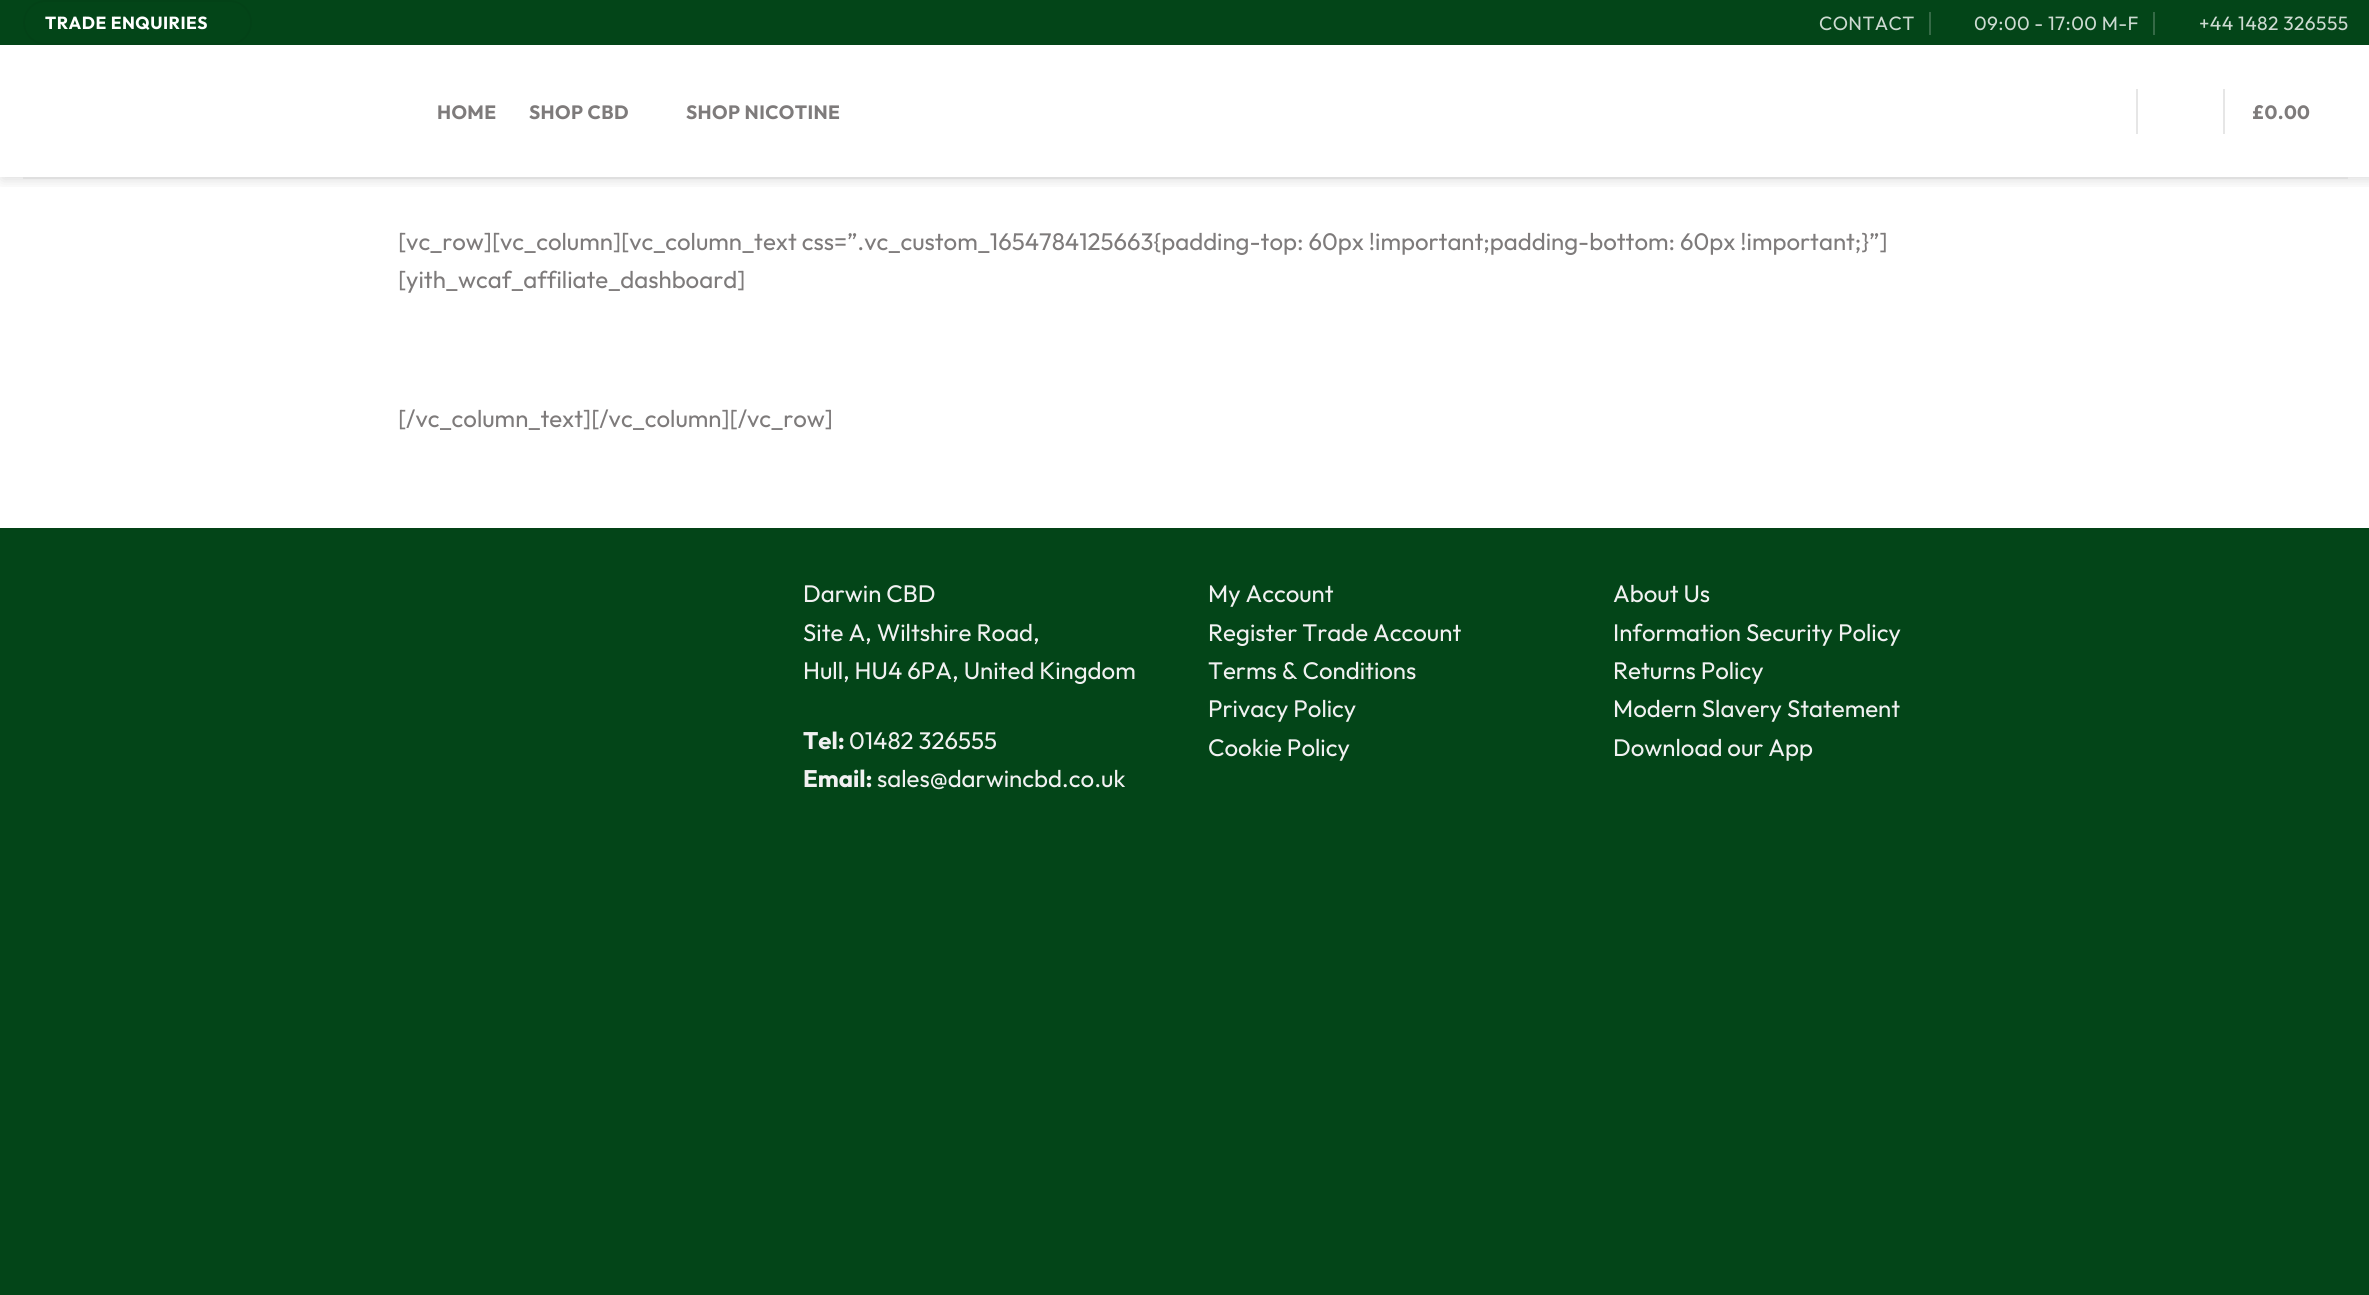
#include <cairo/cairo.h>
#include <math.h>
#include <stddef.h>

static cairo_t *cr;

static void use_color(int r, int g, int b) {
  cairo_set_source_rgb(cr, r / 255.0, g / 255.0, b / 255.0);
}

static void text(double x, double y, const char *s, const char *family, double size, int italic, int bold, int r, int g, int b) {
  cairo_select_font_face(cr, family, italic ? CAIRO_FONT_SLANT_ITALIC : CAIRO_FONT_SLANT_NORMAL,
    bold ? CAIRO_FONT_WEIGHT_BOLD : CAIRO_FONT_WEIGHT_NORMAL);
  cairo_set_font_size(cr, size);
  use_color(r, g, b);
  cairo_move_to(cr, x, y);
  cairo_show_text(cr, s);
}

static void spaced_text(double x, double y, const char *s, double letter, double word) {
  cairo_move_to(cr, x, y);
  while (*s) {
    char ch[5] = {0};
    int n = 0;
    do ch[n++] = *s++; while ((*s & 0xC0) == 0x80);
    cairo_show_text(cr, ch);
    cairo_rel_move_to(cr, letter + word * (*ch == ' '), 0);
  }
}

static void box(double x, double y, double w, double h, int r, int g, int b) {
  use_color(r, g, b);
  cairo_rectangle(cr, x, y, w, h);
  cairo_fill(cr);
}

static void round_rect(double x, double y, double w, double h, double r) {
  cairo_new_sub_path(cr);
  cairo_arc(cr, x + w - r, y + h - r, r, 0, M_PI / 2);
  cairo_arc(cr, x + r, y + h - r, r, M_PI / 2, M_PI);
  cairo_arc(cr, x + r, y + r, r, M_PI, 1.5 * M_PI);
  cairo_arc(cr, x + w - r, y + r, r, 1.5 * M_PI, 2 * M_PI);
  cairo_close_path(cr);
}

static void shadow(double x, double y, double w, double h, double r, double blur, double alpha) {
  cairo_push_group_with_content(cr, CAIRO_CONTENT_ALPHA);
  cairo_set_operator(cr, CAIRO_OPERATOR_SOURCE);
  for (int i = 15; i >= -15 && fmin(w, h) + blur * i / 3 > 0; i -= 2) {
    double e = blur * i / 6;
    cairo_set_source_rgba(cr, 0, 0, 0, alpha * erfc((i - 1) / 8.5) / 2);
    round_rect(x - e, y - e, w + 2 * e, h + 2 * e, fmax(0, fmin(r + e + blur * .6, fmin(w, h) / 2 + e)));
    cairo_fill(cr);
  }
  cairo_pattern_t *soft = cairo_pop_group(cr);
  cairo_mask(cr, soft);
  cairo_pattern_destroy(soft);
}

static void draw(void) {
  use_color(255, 255, 255);
  cairo_paint(cr);
  cairo_save(cr);
  cairo_rectangle(cr, 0, 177, 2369, 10);
  cairo_clip(cr);
  use_color(0, 0, 0);
  shadow(2, 2, 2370, 177, 0, 7.5, 0.15);
  cairo_restore(cr);
  box(0, 0, 2369, 45, 3, 69, 24);
  round_rect(24, 1, 227, 43, 21.5);
  use_color(3, 66, 23);
  cairo_stroke(cr);
  box(1929, 12, 2, 23, 53, 106, 70);
  box(2153, 12, 2, 23, 53, 106, 70);
  box(2136, 89, 2, 45, 230, 230, 230);
  box(2223, 89, 2, 45, 230, 230, 230);
  box(23, 177, 2325, 2, 223, 223, 223);
  box(0, 530, 2369, 765, 3, 69, 24);
  box(0, 528, 2369, 2, 3, 66, 23);
  cairo_select_font_face(cr, "Outfit", CAIRO_FONT_SLANT_NORMAL, CAIRO_FONT_WEIGHT_BOLD);
  cairo_set_font_size(cr, 17.5);
  use_color(255, 255, 255);
  spaced_text(45, 29, "TRADE ENQUIRIES", 0.5, 0);
  cairo_select_font_face(cr, "Outfit", CAIRO_FONT_SLANT_NORMAL, CAIRO_FONT_WEIGHT_NORMAL);
  cairo_set_font_size(cr, 19.25);
  use_color(205, 218, 209);
  spaced_text(1819, 30, "CONTACT", 0.4, 0);
  spaced_text(1974, 30, "09:00 - 17:00 M-F", 0.4, 0);
  spaced_text(2199, 30, "+44 1482 326555", 0.4, 0);
  cairo_select_font_face(cr, "Outfit", CAIRO_FONT_SLANT_NORMAL, CAIRO_FONT_WEIGHT_BOLD);
  use_color(126, 123, 123);
  spaced_text(437, 119, "HOME", 0.4, 0);
  spaced_text(529, 119, "SHOP CBD", 0.4, 0);
  spaced_text(686, 119, "SHOP NICOTINE", 0.4, 0);
  spaced_text(2252, 119, "£0.00", 0.4, 0);
  text(398, 250, "[vc_row][vc_column][vc_column_text css=”.vc_custom_1654784125663{padding-top: 60px !important;padding-bottom: 60px !important;}”]", "Outfit", 24, 0, 0, 126, 123, 123);
  text(398, 288, "[yith_wcaf_affiliate_dashboard]", "Outfit", 24, 0, 0, 126, 123, 123);
  text(398, 427, "[/vc_column_text][/vc_column][/vc_row]", "Outfit", 24, 0, 0, 126, 123, 123);
  text(803, 602, "Darwin CBD", "Outfit", 24, 0, 0, 241, 241, 241);
  text(803, 641, "Site A, Wiltshire Road,", "Outfit", 24, 0, 0, 241, 241, 241);
  text(803, 679, "Hull, HU4 6PA, United Kingdom", "Outfit", 24, 0, 0, 241, 241, 241);
  text(803, 749, "Tel:", "Outfit", 24, 0, 1, 241, 241, 241);
  text(849, 749, "01482 326555", "Outfit", 24, 0, 0, 241, 241, 241);
  text(803, 787, "Email:", "Outfit", 24, 0, 1, 241, 241, 241);
  text(877, 787, "sales@darwincbd.co.uk", "Outfit", 24, 0, 0, 241, 241, 241);
  text(1208, 602, "My Account", "Outfit", 24, 0, 0, 241, 241, 241);
  text(1208, 641, "Register Trade Account", "Outfit", 24, 0, 0, 241, 241, 241);
  text(1208, 679, "Terms & Conditions", "Outfit", 24, 0, 0, 241, 241, 241);
  text(1208, 717, "Privacy Policy", "Outfit", 24, 0, 0, 241, 241, 241);
  text(1208, 756, "Cookie Policy", "Outfit", 24, 0, 0, 241, 241, 241);
  text(1613, 602, "About Us", "Outfit", 24, 0, 0, 241, 241, 241);
  text(1613, 641, "Information Security Policy", "Outfit", 24, 0, 0, 241, 241, 241);
  text(1613, 679, "Returns Policy", "Outfit", 24, 0, 0, 241, 241, 241);
  text(1613, 717, "Modern Slavery Statement", "Outfit", 24, 0, 0, 241, 241, 241);
  text(1613, 756, "Download our App", "Outfit", 24, 0, 0, 241, 241, 241);
}

int main(void) {
  cairo_surface_t *surface = cairo_image_surface_create(CAIRO_FORMAT_RGB24, 2369, 1295);
  cr = cairo_create(surface);
  cairo_font_options_t *options = cairo_font_options_create();
  cairo_font_options_set_hint_metrics(options, CAIRO_HINT_METRICS_OFF);
  cairo_font_options_set_hint_style(options, CAIRO_HINT_STYLE_NONE);
  cairo_set_font_options(cr, options);
  cairo_set_miter_limit(cr, 4);
  draw();
  cairo_surface_write_to_png(surface, "out.png");
  cairo_font_options_destroy(options);
  cairo_destroy(cr);
  cairo_surface_destroy(surface);
  return 0;
}
